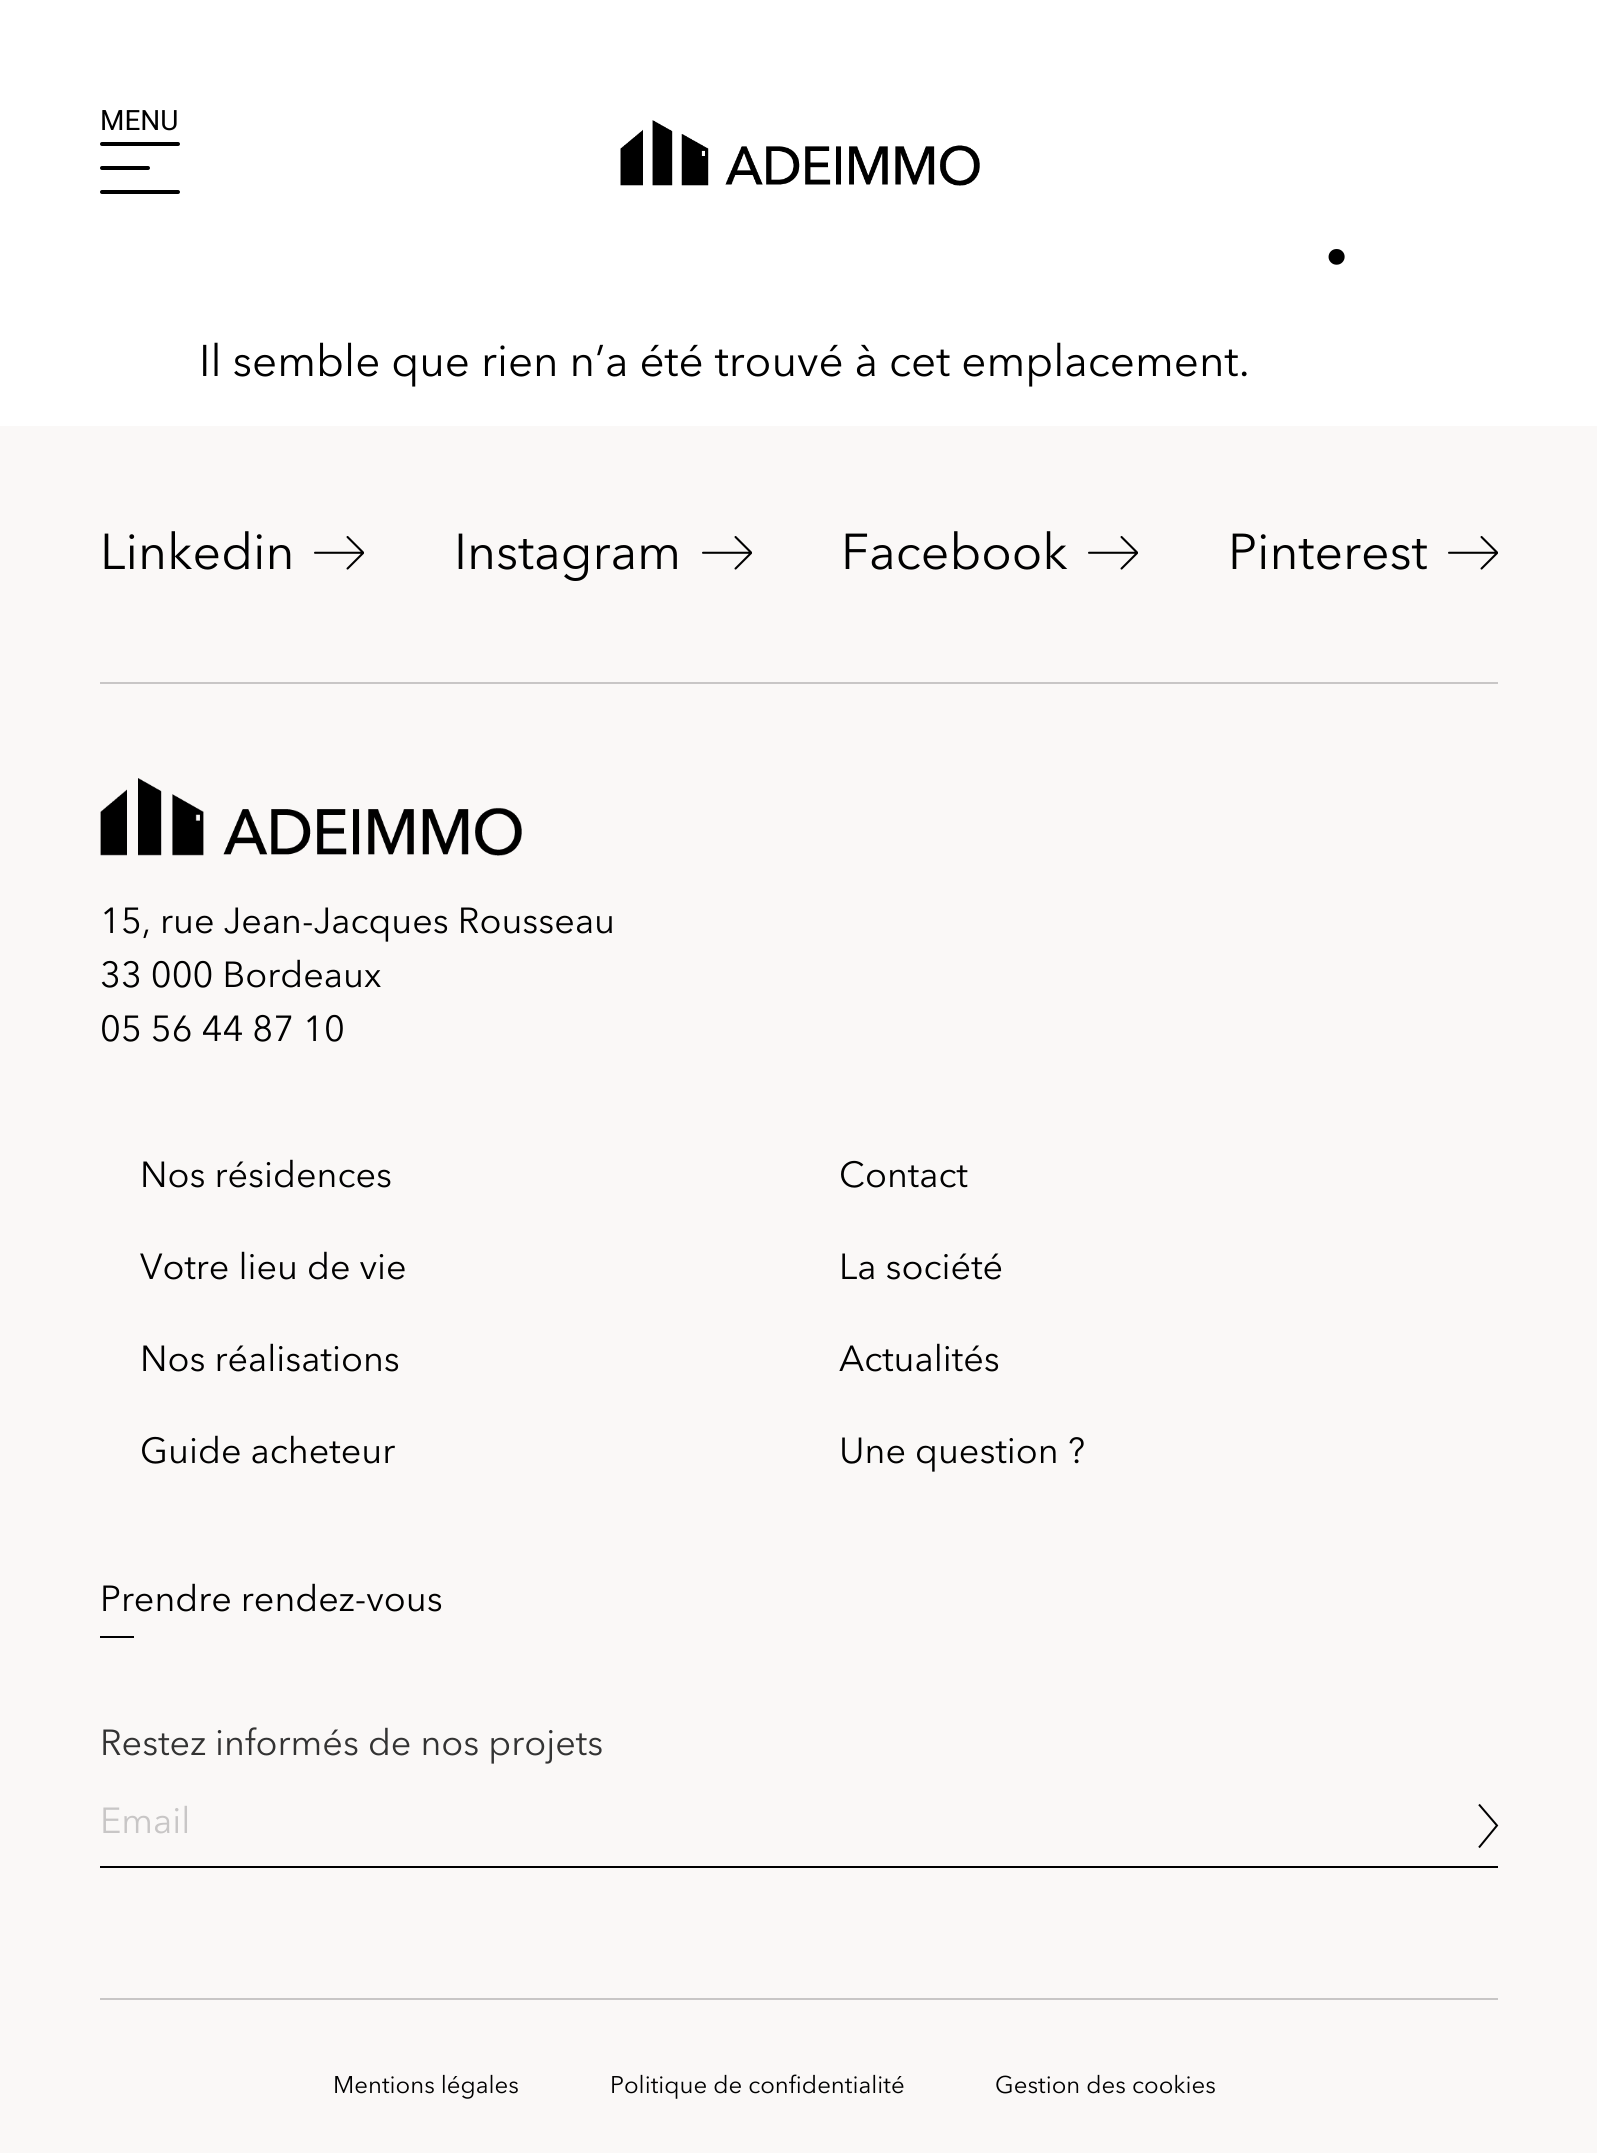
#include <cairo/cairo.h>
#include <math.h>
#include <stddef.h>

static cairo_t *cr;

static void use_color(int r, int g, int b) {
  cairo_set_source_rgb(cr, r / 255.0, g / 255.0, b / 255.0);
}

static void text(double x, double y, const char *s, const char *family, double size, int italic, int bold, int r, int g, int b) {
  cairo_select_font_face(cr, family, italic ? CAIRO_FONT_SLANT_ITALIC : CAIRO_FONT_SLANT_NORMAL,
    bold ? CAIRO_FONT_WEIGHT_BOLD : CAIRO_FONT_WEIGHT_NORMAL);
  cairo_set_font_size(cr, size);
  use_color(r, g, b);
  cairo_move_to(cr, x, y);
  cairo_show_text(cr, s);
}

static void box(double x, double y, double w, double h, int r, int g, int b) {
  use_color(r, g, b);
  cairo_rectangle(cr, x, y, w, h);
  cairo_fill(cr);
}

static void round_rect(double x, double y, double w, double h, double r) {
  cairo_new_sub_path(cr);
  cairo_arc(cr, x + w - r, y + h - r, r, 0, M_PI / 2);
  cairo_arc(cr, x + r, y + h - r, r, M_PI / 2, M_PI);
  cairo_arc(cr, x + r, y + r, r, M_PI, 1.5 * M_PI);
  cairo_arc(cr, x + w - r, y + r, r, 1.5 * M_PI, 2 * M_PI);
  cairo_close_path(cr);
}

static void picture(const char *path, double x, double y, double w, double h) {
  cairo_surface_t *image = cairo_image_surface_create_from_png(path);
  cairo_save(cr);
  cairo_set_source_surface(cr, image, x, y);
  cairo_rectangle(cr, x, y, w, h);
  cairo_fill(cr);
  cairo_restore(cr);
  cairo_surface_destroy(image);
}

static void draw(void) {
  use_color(255, 255, 255);
  cairo_paint(cr);
  use_color(0, 0, 0);
  round_rect(100, 142, 80, 4, 2);
  cairo_fill(cr);
  round_rect(100, 166, 50, 4, 2);
  cairo_fill(cr);
  round_rect(100, 190, 80, 4, 2);
  cairo_fill(cr);
  picture("img_01.png", 620, 120, 360, 66);
  box(0, 426, 1597, 1727, 250, 248, 247);
  picture("img_02.png", 314, 536, 50, 34);
  picture("img_02.png", 702, 536, 50, 34);
  picture("img_02.png", 1088, 536, 50, 34);
  picture("img_02.png", 1448, 536, 50, 34);
  box(100, 682, 1398, 2, 200, 198, 198);
  picture("img_03.png", 100, 778, 422, 78);
  box(100, 1636, 34, 2, 0, 0, 0);
  box(100, 1866, 1398, 2, 0, 0, 0);
  cairo_new_path(cr);
  cairo_move_to(cr, 1479, 1804.5);
  cairo_line_to(cr, 1497, 1825.5);
  cairo_line_to(cr, 1479, 1847.5);
  cairo_stroke(cr);
  box(100, 1998, 1398, 2, 200, 198, 198);
  text(100, 130, "MENU", "Roboto", 28, 0, 0, 0, 0, 0);
  text(1321, 264, ".", "Avenir Next Medium", 120, 0, 0, 0, 0, 0);
  text(199, 376, "Il semble que rien n’a été trouvé à cet emplacement.", "Avenir Next", 44, 0, 0, 0, 0, 0);
  text(100, 569, "Linkedin", "Avenir Next", 50, 0, 0, 0, 0, 0);
  text(454, 569, "Instagram", "Avenir Next", 50, 0, 0, 0, 0, 0);
  text(841, 569, "Facebook", "Avenir Next", 50, 0, 0, 0, 0, 0);
  text(1228, 569, "Pinterest", "Avenir Next", 50, 0, 0, 0, 0, 0);
  text(100, 933, "15, rue Jean-Jacques Rousseau", "Avenir Next", 36, 0, 0, 0, 0, 0);
  text(100, 987, "33 000 Bordeaux", "Avenir Next", 36, 0, 0, 0, 0, 0);
  text(100, 1041, "05 56 44 87 10", "Avenir Next", 36, 0, 0, 0, 0, 0);
  text(140, 1187, "Nos résidences", "Avenir Next", 36, 0, 0, 0, 0, 0);
  text(140, 1279, "Votre lieu de vie", "Avenir Next", 36, 0, 0, 0, 0, 0);
  text(140, 1371, "Nos réalisations", "Avenir Next", 36, 0, 0, 0, 0, 0);
  text(140, 1463, "Guide acheteur", "Avenir Next", 36, 0, 0, 0, 0, 0);
  text(839, 1187, "Contact", "Avenir Next", 36, 0, 0, 0, 0, 0);
  text(839, 1279, "La société", "Avenir Next", 36, 0, 0, 0, 0, 0);
  text(839, 1371, "Actualités", "Avenir Next", 36, 0, 0, 0, 0, 0);
  text(839, 1463, "Une question ?", "Avenir Next", 36, 0, 0, 0, 0, 0);
  text(100, 1611, "Prendre rendez-vous", "Avenir Next", 36, 0, 0, 0, 0, 0);
  text(100, 1755, "Restez informés de nos projets", "Avenir Next", 36, 0, 0, 51, 51, 51);
  text(100, 1833, "Email", "Avenir Next", 36, 0, 0, 200, 198, 198);
  text(333, 2093, "Mentions légales", "Avenir Next", 24, 0, 0, 0, 0, 0);
  text(610, 2093, "Politique de confidentialité", "Avenir Next", 24, 0, 0, 0, 0, 0);
  text(995, 2093, "Gestion des cookies", "Avenir Next", 24, 0, 0, 0, 0, 0);
}

int main(void) {
  cairo_surface_t *surface = cairo_image_surface_create(CAIRO_FORMAT_RGB24, 1597, 2153);
  cr = cairo_create(surface);
  cairo_font_options_t *options = cairo_font_options_create();
  cairo_font_options_set_hint_metrics(options, CAIRO_HINT_METRICS_OFF);
  cairo_font_options_set_hint_style(options, CAIRO_HINT_STYLE_NONE);
  cairo_set_font_options(cr, options);
  cairo_set_miter_limit(cr, 4);
  draw();
  cairo_surface_write_to_png(surface, "out.png");
  cairo_font_options_destroy(options);
  cairo_destroy(cr);
  cairo_surface_destroy(surface);
  return 0;
}
